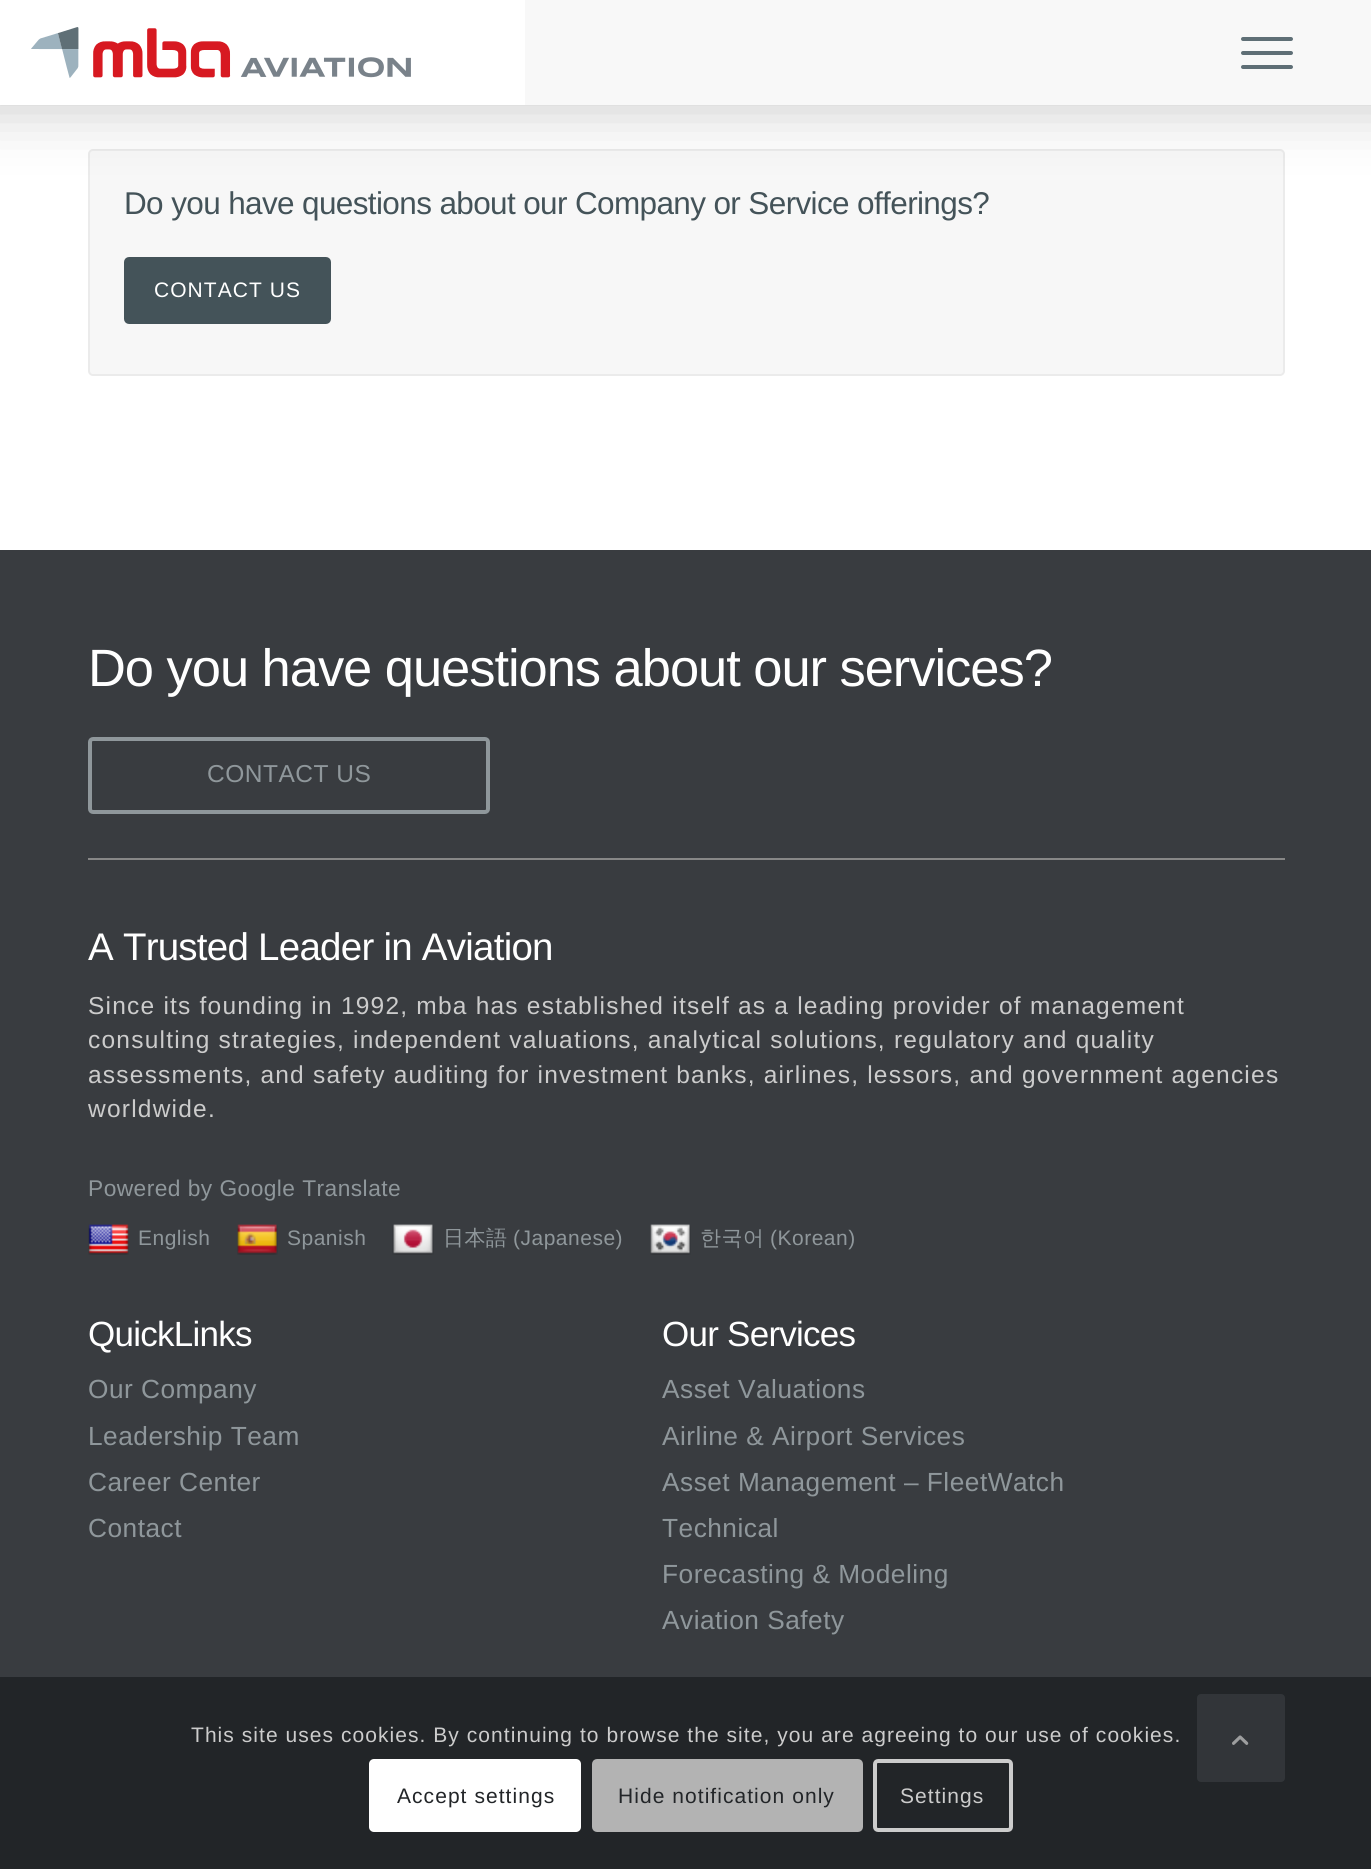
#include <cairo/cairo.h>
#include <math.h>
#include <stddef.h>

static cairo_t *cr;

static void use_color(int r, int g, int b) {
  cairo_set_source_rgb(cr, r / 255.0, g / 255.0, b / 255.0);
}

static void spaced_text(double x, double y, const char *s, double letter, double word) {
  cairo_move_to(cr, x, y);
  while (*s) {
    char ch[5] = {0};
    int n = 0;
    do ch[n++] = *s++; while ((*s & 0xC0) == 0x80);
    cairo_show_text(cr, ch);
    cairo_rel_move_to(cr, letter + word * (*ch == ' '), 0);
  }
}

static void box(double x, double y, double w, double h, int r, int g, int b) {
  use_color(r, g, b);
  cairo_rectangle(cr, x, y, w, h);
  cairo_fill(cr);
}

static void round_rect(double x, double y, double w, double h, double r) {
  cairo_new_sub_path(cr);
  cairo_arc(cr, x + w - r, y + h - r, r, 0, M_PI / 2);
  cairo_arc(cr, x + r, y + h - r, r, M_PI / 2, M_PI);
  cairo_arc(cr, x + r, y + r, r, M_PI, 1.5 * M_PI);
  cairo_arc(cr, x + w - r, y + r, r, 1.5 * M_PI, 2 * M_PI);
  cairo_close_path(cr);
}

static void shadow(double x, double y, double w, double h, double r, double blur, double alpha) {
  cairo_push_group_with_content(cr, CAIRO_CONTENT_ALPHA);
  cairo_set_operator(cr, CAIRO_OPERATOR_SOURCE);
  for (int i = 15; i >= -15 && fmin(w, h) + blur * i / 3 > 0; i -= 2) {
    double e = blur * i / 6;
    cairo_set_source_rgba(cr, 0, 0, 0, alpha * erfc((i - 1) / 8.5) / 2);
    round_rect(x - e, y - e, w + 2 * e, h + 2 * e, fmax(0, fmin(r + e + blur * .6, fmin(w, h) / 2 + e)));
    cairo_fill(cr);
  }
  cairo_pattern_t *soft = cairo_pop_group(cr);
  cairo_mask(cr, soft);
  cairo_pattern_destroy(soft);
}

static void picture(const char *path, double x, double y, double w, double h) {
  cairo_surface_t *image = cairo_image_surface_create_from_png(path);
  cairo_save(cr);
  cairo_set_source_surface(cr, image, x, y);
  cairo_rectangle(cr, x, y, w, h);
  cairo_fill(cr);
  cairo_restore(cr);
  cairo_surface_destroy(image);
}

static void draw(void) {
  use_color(255, 255, 255);
  cairo_paint(cr);
  use_color(247, 247, 247);
  round_rect(89, 150, 1195, 225, 4);
  cairo_fill_preserve(cr);
  use_color(235, 235, 235);
  cairo_stroke(cr);
  use_color(50, 50, 50);
  shadow(-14, -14, 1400, 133, 0, 26, 0.2);
  picture("img_01.png", 0, 0, 525, 105);
  box(525, 0, 846, 105, 248, 248, 248);
  use_color(95, 111, 118);
  round_rect(1241, 51, 52, 4, 2);
  cairo_fill(cr);
  round_rect(1241, 37, 52, 4, 2);
  cairo_fill(cr);
  round_rect(1241, 65, 52, 4, 2);
  cairo_fill(cr);
  use_color(68, 83, 89);
  round_rect(126, 259, 203, 63, 3);
  cairo_fill_preserve(cr);
  cairo_set_line_width(cr, 4);
  cairo_stroke(cr);
  box(0, 550, 1371, 1127, 57, 60, 64);
  round_rect(90, 739, 398, 73, 3);
  use_color(143, 151, 155);
  cairo_stroke(cr);
  box(88, 858, 1197, 2, 135, 135, 135);
  picture("img_02.png", 88, 1224, 41, 31);
  picture("img_03.png", 237, 1224, 41, 31);
  picture("img_04.png", 392, 1224, 42, 31);
  picture("img_05.png", 650, 1224, 41, 31);
  box(0, 1677, 1371, 192, 34, 37, 40);
  use_color(255, 255, 255);
  round_rect(369, 1759, 212, 73, 5);
  cairo_fill(cr);
  use_color(179, 179, 179);
  round_rect(594, 1761, 267, 69, 3);
  cairo_fill_preserve(cr);
  cairo_stroke(cr);
  round_rect(875, 1761, 136, 69, 3);
  use_color(204, 204, 204);
  cairo_stroke(cr);
  use_color(50, 53, 57);
  round_rect(1198, 1695, 86, 86, 3);
  cairo_fill_preserve(cr);
  cairo_set_line_width(cr, 2);
  cairo_stroke(cr);
  picture("img_06.png", 1232, 1735, 17, 10);
  cairo_select_font_face(cr, "Liberation Sans", CAIRO_FONT_SLANT_NORMAL, CAIRO_FONT_WEIGHT_NORMAL);
  cairo_set_font_size(cr, 31.5);
  use_color(68, 83, 89);
  spaced_text(124, 214, "Do you have questions about our Company or Service offerings?", -0.63, 0);
  cairo_set_font_size(cr, 21);
  use_color(255, 255, 255);
  spaced_text(154, 297, "CONTACT US", 1.05, 0);
  cairo_set_font_size(cr, 52.5);
  spaced_text(88, 686, "Do you have questions about our services?", -1.05, 0);
  cairo_set_font_size(cr, 24.5);
  use_color(143, 151, 155);
  spaced_text(207, 782, "CONTACT US", 0.5, 0);
  cairo_set_font_size(cr, 38.5);
  use_color(255, 255, 255);
  spaced_text(88, 960, "A Trusted Leader in Aviation", -0.75, 0);
  cairo_set_font_size(cr, 24.5);
  use_color(204, 204, 204);
  spaced_text(88, 1014, "Since its founding in 1992, mba has established itself as a leading provider of management", 1.22, 0);
  spaced_text(88, 1048, "consulting strategies, independent valuations, analytical solutions, regulatory and quality", 1.22, 0);
  spaced_text(88, 1083, "assessments, and safety auditing for investment banks, airlines, lessors, and government agencies", 1.22, 0);
  spaced_text(88, 1117, "worldwide.", 1.22, 0);
  cairo_set_font_size(cr, 22.75);
  use_color(143, 151, 155);
  spaced_text(88, 1196, "Powered by Google Translate", 0.45, 0);
  cairo_set_font_size(cr, 21);
  spaced_text(138, 1245, "English", 0.5, 0);
  spaced_text(287, 1245, "Spanish", 0.5, 0);
  cairo_select_font_face(cr, "WenQuanYi Zen Hei Medium", CAIRO_FONT_SLANT_NORMAL, CAIRO_FONT_WEIGHT_NORMAL);
  spaced_text(443, 1245, "日本語", 0.5, 0);
  cairo_select_font_face(cr, "Liberation Sans", CAIRO_FONT_SLANT_NORMAL, CAIRO_FONT_WEIGHT_NORMAL);
  spaced_text(513, 1245, "(Japanese)", 0.5, 0);
  cairo_select_font_face(cr, "WenQuanYi Zen Hei Medium", CAIRO_FONT_SLANT_NORMAL, CAIRO_FONT_WEIGHT_NORMAL);
  spaced_text(700, 1245, "한국어", 0.5, 0);
  cairo_select_font_face(cr, "Liberation Sans", CAIRO_FONT_SLANT_NORMAL, CAIRO_FONT_WEIGHT_NORMAL);
  spaced_text(770, 1245, "(Korean)", 0.5, 0);
  cairo_set_font_size(cr, 35);
  use_color(255, 255, 255);
  spaced_text(88, 1346, "QuickLinks", -0.75, 0);
  cairo_set_font_size(cr, 26.25);
  use_color(143, 151, 155);
  spaced_text(88, 1398, "Our Company", 0.5, 0);
  spaced_text(88, 1445, "Leadership Team", 0.5, 0);
  spaced_text(88, 1491, "Career Center", 0.5, 0);
  spaced_text(88, 1537, "Contact", 0.5, 0);
  cairo_set_font_size(cr, 35);
  use_color(255, 255, 255);
  spaced_text(662, 1346, "Our Services", -0.75, 0);
  cairo_set_font_size(cr, 26.25);
  use_color(143, 151, 155);
  spaced_text(662, 1398, "Asset Valuations", 0.5, 0);
  spaced_text(662, 1445, "Airline & Airport Services", 0.5, 0);
  spaced_text(662, 1491, "Asset Management – FleetWatch", 0.5, 0);
  spaced_text(662, 1537, "Technical", 0.5, 0);
  spaced_text(662, 1583, "Forecasting & Modeling", 0.5, 0);
  spaced_text(662, 1629, "Aviation Safety", 0.5, 0);
  cairo_set_font_size(cr, 21);
  use_color(204, 204, 204);
  spaced_text(191, 1742, "This site uses cookies. By continuing to browse the site, you are agreeing to our use of cookies.", 1.05, 0);
  use_color(34, 37, 40);
  spaced_text(397, 1803, "Accept settings", 1.05, 0);
  spaced_text(618, 1803, "Hide notification only", 1.05, 0);
  use_color(204, 204, 204);
  spaced_text(900, 1803, "Settings", 1.05, 0);
}

int main(void) {
  cairo_surface_t *surface = cairo_image_surface_create(CAIRO_FORMAT_RGB24, 1371, 1869);
  cr = cairo_create(surface);
  cairo_font_options_t *options = cairo_font_options_create();
  cairo_font_options_set_hint_metrics(options, CAIRO_HINT_METRICS_OFF);
  cairo_font_options_set_hint_style(options, CAIRO_HINT_STYLE_NONE);
  cairo_set_font_options(cr, options);
  cairo_set_miter_limit(cr, 4);
  draw();
  cairo_surface_write_to_png(surface, "out.png");
  cairo_font_options_destroy(options);
  cairo_destroy(cr);
  cairo_surface_destroy(surface);
  return 0;
}
